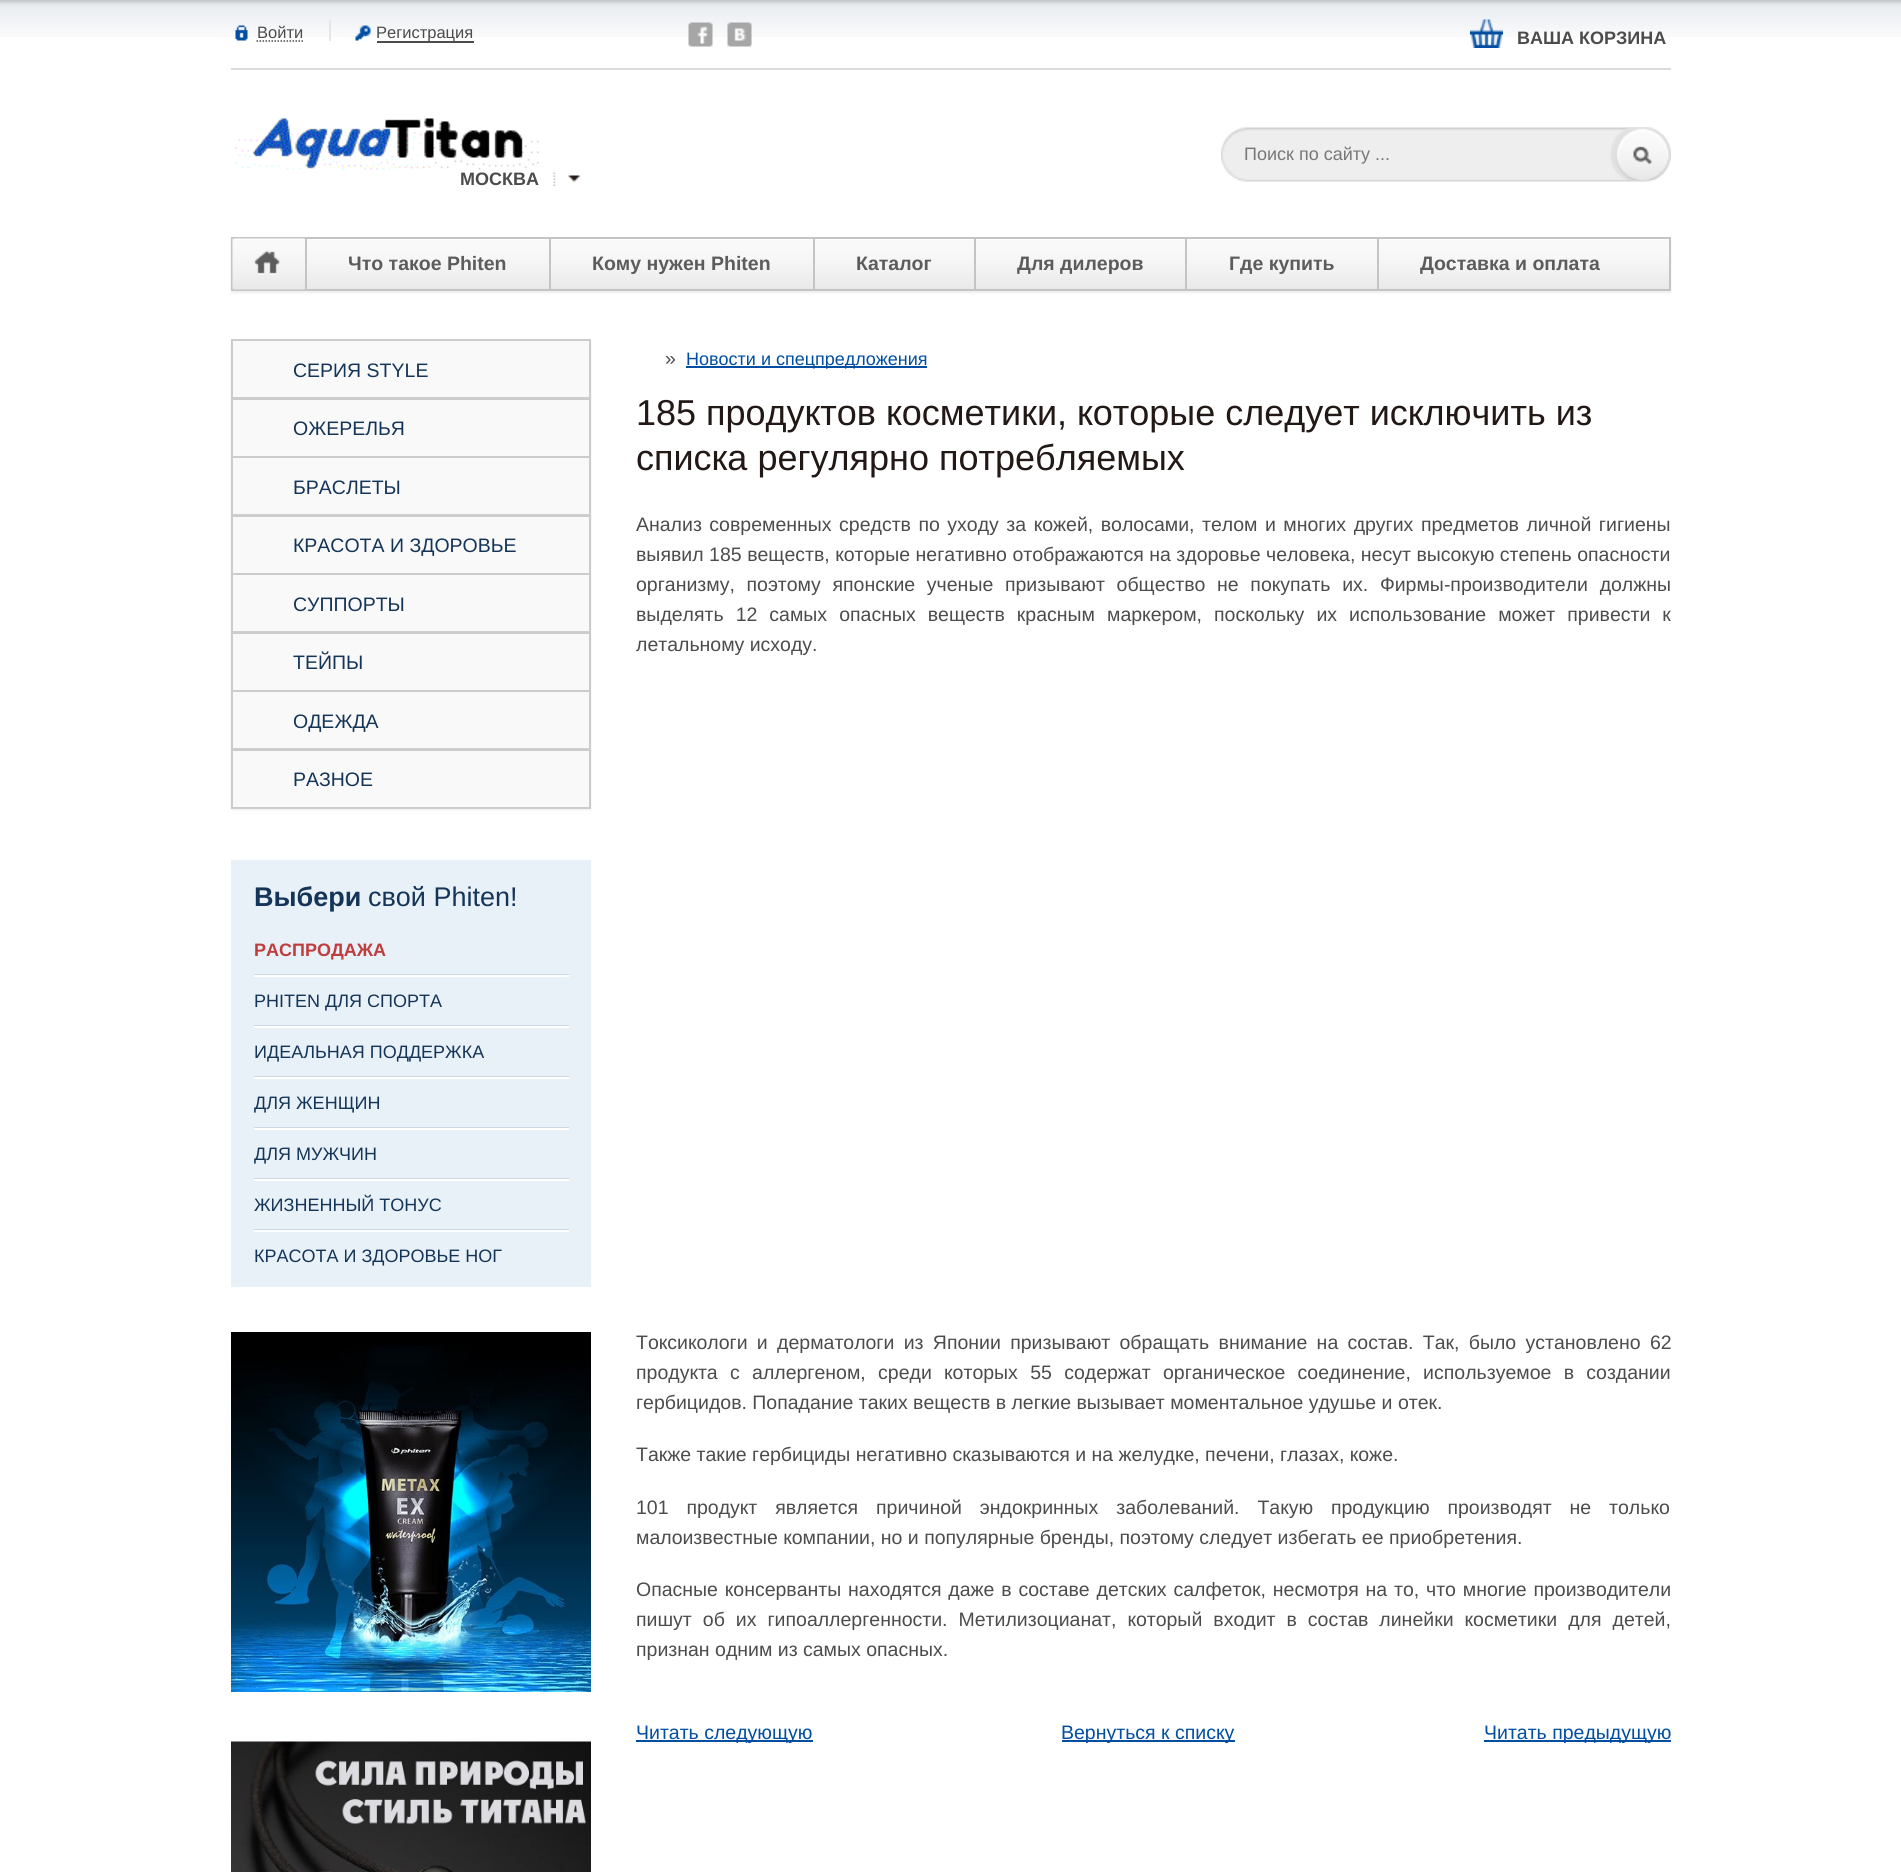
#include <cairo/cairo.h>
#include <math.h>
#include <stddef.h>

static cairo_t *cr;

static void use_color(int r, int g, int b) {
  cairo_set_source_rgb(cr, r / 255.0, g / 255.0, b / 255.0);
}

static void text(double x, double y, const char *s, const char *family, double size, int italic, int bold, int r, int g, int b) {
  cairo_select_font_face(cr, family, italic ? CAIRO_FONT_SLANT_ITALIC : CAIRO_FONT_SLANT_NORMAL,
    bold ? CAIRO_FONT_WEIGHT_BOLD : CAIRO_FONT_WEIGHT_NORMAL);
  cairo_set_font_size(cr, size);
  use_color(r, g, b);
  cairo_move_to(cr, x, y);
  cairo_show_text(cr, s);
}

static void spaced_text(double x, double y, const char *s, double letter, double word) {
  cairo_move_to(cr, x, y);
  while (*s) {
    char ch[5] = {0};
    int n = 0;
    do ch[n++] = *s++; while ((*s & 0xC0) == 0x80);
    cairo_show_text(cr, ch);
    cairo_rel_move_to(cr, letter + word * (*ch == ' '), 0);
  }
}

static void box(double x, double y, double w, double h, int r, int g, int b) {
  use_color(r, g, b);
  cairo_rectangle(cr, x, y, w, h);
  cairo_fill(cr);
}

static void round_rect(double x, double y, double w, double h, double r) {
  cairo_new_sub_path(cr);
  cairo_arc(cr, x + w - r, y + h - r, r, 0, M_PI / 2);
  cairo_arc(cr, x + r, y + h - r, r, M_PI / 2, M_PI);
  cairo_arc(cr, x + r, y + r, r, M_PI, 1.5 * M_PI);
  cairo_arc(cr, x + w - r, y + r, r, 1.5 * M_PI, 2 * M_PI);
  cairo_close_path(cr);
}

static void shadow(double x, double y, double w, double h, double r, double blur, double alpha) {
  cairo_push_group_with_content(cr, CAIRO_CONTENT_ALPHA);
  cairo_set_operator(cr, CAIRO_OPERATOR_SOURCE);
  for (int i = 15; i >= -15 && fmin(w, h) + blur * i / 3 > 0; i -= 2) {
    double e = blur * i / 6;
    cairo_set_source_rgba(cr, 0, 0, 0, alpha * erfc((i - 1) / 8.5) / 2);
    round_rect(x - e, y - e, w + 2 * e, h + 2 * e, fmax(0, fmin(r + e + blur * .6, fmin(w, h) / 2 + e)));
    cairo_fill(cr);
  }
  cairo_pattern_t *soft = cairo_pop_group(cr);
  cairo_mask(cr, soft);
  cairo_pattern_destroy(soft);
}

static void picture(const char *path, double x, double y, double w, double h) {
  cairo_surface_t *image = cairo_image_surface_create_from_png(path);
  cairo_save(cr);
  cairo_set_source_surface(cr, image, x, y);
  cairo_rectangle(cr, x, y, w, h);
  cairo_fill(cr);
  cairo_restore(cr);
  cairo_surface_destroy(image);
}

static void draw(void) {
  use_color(255, 255, 255);
  cairo_paint(cr);
  picture("img_01.png", 0, 0, 1901, 37);
  picture("img_02.png", 235, 25, 13, 16);
  cairo_new_path(cr);
  cairo_move_to(cr, 256.5, 41);
  cairo_line_to(cr, 303, 41);
  use_color(76, 76, 76);
  cairo_set_line_width(cr, 1.5);
  cairo_set_dash(cr, (double[]){1.5, 1.5}, 2, 0);
  cairo_stroke(cr);
  picture("img_03.png", 355, 25, 16, 16);
  box(329, 20, 2, 21, 230, 230, 230);
  box(377, 41, 97, 2, 76, 76, 76);
  picture("img_04.png", 688, 22, 25, 25);
  picture("img_05.png", 727, 22, 25, 25);
  picture("img_06.png", 1470, 19, 33, 29);
  box(231, 68, 1440, 2, 219, 219, 219);
  picture("img_07.png", 235, 118, 304, 52);
  picture("img_08.png", 1221, 127, 450, 55);
  picture("img_09.png", 1610, 127, 60, 53);
  picture("img_10.png", 553, 172, 28, 14);
  use_color(238, 238, 238);
  shadow(231, 239, 1440, 54, 0, 1, 1);
  picture("img_11.png", 304, 239, 1365, 50);
  cairo_rectangle(cr, 232, 238, 1438, 52);
  use_color(196, 196, 196);
  cairo_set_line_width(cr, 2);
  cairo_set_dash(cr, NULL, 0, 0);
  cairo_stroke(cr);
  picture("img_12.png", 232, 238, 73, 52);
  box(305, 239, 2, 51, 196, 196, 196);
  box(549, 239, 2, 51, 196, 196, 196);
  box(813, 239, 2, 51, 196, 196, 196);
  box(974, 239, 2, 51, 196, 196, 196);
  box(1185, 239, 2, 51, 196, 196, 196);
  box(1377, 239, 2, 51, 196, 196, 196);
  use_color(238, 238, 238);
  shadow(231, 341, 360, 60, 0, 1, 1);
  use_color(249, 249, 249);
  cairo_rectangle(cr, 232, 340, 358, 58);
  cairo_fill_preserve(cr);
  use_color(204, 204, 204);
  cairo_stroke(cr);
  use_color(238, 238, 238);
  shadow(231, 399, 360, 60, 0, 1, 1);
  use_color(249, 249, 249);
  cairo_rectangle(cr, 232, 399, 358, 58);
  cairo_fill_preserve(cr);
  use_color(204, 204, 204);
  cairo_stroke(cr);
  use_color(238, 238, 238);
  shadow(231, 458, 360, 60, 0, 1, 1);
  use_color(249, 249, 249);
  cairo_rectangle(cr, 232, 457, 358, 58);
  cairo_fill_preserve(cr);
  use_color(204, 204, 204);
  cairo_stroke(cr);
  use_color(238, 238, 238);
  shadow(231, 516, 360, 60, 0, 1, 1);
  use_color(249, 249, 249);
  cairo_rectangle(cr, 232, 516, 358, 58);
  cairo_fill_preserve(cr);
  use_color(204, 204, 204);
  cairo_stroke(cr);
  use_color(238, 238, 238);
  shadow(231, 575, 360, 60, 0, 1, 1);
  use_color(249, 249, 249);
  cairo_rectangle(cr, 232, 574, 358, 58);
  cairo_fill_preserve(cr);
  use_color(204, 204, 204);
  cairo_stroke(cr);
  use_color(238, 238, 238);
  shadow(231, 633, 360, 60, 0, 1, 1);
  use_color(249, 249, 249);
  cairo_rectangle(cr, 232, 633, 358, 58);
  cairo_fill_preserve(cr);
  use_color(204, 204, 204);
  cairo_stroke(cr);
  use_color(238, 238, 238);
  shadow(231, 692, 360, 60, 0, 1, 1);
  use_color(249, 249, 249);
  cairo_rectangle(cr, 232, 691, 358, 58);
  cairo_fill_preserve(cr);
  use_color(204, 204, 204);
  cairo_stroke(cr);
  use_color(238, 238, 238);
  shadow(231, 750, 360, 60, 0, 1, 1);
  use_color(249, 249, 249);
  cairo_rectangle(cr, 232, 750, 358, 58);
  cairo_fill_preserve(cr);
  use_color(204, 204, 204);
  cairo_stroke(cr);
  box(231, 860, 360, 427, 233, 241, 248);
  box(254, 974, 315, 1, 203, 216, 228);
  box(254, 975, 315, 2, 255, 255, 255);
  box(254, 1025, 315, 1, 203, 216, 228);
  box(254, 1026, 315, 2, 255, 255, 255);
  box(254, 1076, 315, 1, 203, 216, 228);
  box(254, 1077, 315, 2, 255, 255, 255);
  box(254, 1127, 315, 1, 203, 216, 228);
  box(254, 1128, 315, 2, 255, 255, 255);
  box(254, 1178, 315, 1, 203, 216, 228);
  box(254, 1179, 315, 2, 255, 255, 255);
  box(254, 1229, 315, 1, 203, 216, 228);
  box(254, 1230, 315, 2, 255, 255, 255);
  picture("img_13.png", 231, 1332, 360, 360);
  picture("img_14.png", 231, 1741, 360, 131);
  box(686, 366, 241, 2, 0, 78, 162);
  box(636, 1740, 177, 2, 0, 78, 162);
  box(1062, 1740, 173, 2, 0, 78, 162);
  box(1484, 1740, 187, 2, 0, 78, 162);
  text(257, 38, "Войти", "Liberation Sans", 16.5, 0, 0, 76, 76, 76);
  text(376, 38, "Регистрация", "Liberation Sans", 16.5, 0, 0, 76, 76, 76);
  text(1517, 44, "ВАША КОРЗИНА", "Liberation Sans", 18, 0, 1, 76, 76, 76);
  text(1244, 160, "Поиск по сайту ...", "Liberation Sans", 18, 0, 0, 119, 119, 119);
  text(460, 185, "МОСКВА", "Liberation Sans", 18, 0, 1, 76, 76, 76);
  text(348, 270, "Что такое Phiten", "Liberation Sans", 19.5, 0, 1, 92, 92, 92);
  text(592, 270, "Кому нужен Phiten", "Liberation Sans", 19.5, 0, 1, 92, 92, 92);
  text(856, 270, "Каталог", "Liberation Sans", 19.5, 0, 1, 92, 92, 92);
  text(1017, 270, "Для дилеров", "Liberation Sans", 19.5, 0, 1, 92, 92, 92);
  text(1229, 270, "Где купить", "Liberation Sans", 19.5, 0, 1, 92, 92, 92);
  text(1420, 270, "Доставка и оплата", "Liberation Sans", 19.5, 0, 1, 92, 92, 92);
  text(293, 377, "СЕРИЯ STYLE", "Liberation Sans", 19.5, 0, 0, 20, 53, 88);
  text(293, 435, "ОЖЕРЕЛЬЯ", "Liberation Sans", 19.5, 0, 0, 20, 53, 88);
  text(293, 494, "БРАСЛЕТЫ", "Liberation Sans", 19.5, 0, 0, 20, 53, 88);
  text(293, 552, "КРАСОТА И ЗДОРОВЬЕ", "Liberation Sans", 19.5, 0, 0, 20, 53, 88);
  text(293, 611, "СУППОРТЫ", "Liberation Sans", 19.5, 0, 0, 20, 53, 88);
  text(293, 669, "ТЕЙПЫ", "Liberation Sans", 19.5, 0, 0, 20, 53, 88);
  text(293, 728, "ОДЕЖДА", "Liberation Sans", 19.5, 0, 0, 20, 53, 88);
  text(293, 786, "РАЗНОЕ", "Liberation Sans", 19.5, 0, 0, 20, 53, 88);
  text(254, 906, "Выбери", "Liberation Sans", 27, 0, 1, 20, 53, 88);
  text(368, 906, "свой Phiten!", "Liberation Sans", 27, 0, 0, 20, 53, 88);
  text(254, 956, "РАСПРОДАЖА", "Liberation Sans", 18, 0, 1, 191, 61, 61);
  text(254, 1007, "PHITEN ДЛЯ СПОРТА", "Liberation Sans", 18, 0, 0, 20, 53, 88);
  text(254, 1058, "ИДЕАЛЬНАЯ ПОДДЕРЖКА", "Liberation Sans", 18, 0, 0, 20, 53, 88);
  cairo_save(cr);
  cairo_rectangle(cr, 254, 926, 315, 354);
  cairo_clip(cr);
  text(254, 1109, "ДЛЯ ЖЕНЩИН", "Liberation Sans", 18, 0, 0, 20, 53, 88);
  text(254, 1160, "ДЛЯ МУЖЧИН", "Liberation Sans", 18, 0, 0, 20, 53, 88);
  cairo_restore(cr);
  text(254, 1211, "ЖИЗНЕННЫЙ ТОНУС", "Liberation Sans", 18, 0, 0, 20, 53, 88);
  text(254, 1262, "КРАСОТА И ЗДОРОВЬЕ НОГ", "Liberation Sans", 18, 0, 0, 20, 53, 88);
  text(665, 365, "»", "Liberation Sans", 19.5, 0, 0, 76, 76, 76);
  text(686, 365, "Новости и спецпредложения", "Liberation Sans", 18, 0, 0, 0, 78, 162);
  text(636, 425, "185 продуктов косметики, которые следует исключить из", "Liberation Sans", 36, 0, 0, 34, 24, 21);
  text(636, 470, "списка регулярно потребляемых", "Liberation Sans", 36, 0, 0, 34, 24, 21);
  cairo_set_font_size(cr, 19.5);
  use_color(76, 76, 76);
  spaced_text(636, 531, "Анализ современных средств по уходу за кожей, волосами, телом и многих других предметов личной гигиены", 0, 2.1);
  spaced_text(636, 561, "выявил 185 веществ, которые негативно отображаются на здоровье человека, несут высокую степень опасности", 0, 0.1);
  spaced_text(636, 591, "организму, поэтому японские ученые призывают общество не покупать их. Фирмы-производители должны", 0, 6.25);
  spaced_text(636, 621, "выделять 12 самых опасных веществ красным маркером, поскольку их использование может привести к", 0, 6.6);
  text(636, 651, "летальному исходу.", "Liberation Sans", 19.5, 0, 0, 76, 76, 76);
  spaced_text(636, 1349, "Токсикологи и дерматологи из Японии призывают обращать внимание на состав. Так, было установлено 62", 0, 3.9);
  spaced_text(636, 1379, "продукта с аллергеном, среди которых 55 содержат органическое соединение, используемое в создании", 0, 6.9);
  text(636, 1409, "гербицидов. Попадание таких веществ в легкие вызывает моментальное удушье и отек.", "Liberation Sans", 19.5, 0, 0, 76, 76, 76);
  text(636, 1461, "Также такие гербициды негативно сказываются и на желудке, печени, глазах, коже.", "Liberation Sans", 19.5, 0, 0, 76, 76, 76);
  spaced_text(636, 1514, "101 продукт является причиной эндокринных заболеваний. Такую продукцию производят не только", 0, 12.5);
  text(636, 1544, "малоизвестные компании, но и популярные бренды, поэтому следует избегать ее приобретения.", "Liberation Sans", 19.5, 0, 0, 76, 76, 76);
  spaced_text(636, 1596, "Опасные консерванты находятся даже в составе детских салфеток, несмотря на то, что многие производители", 0, 1.4);
  spaced_text(636, 1626, "пишут об их гипоаллергенности. Метилизоцианат, который входит в состав линейки косметики для детей,", 0, 5.6);
  text(636, 1656, "признан одним из самых опасных.", "Liberation Sans", 19.5, 0, 0, 76, 76, 76);
  text(636, 1739, "Читать следующую", "Liberation Sans", 19.5, 0, 0, 0, 78, 162);
  text(1061, 1739, "Вернуться к списку", "Liberation Sans", 19.5, 0, 0, 0, 78, 162);
  text(1484, 1739, "Читать предыдущую", "Liberation Sans", 19.5, 0, 0, 0, 78, 162);
}

int main(void) {
  cairo_surface_t *surface = cairo_image_surface_create(CAIRO_FORMAT_RGB24, 1901, 1872);
  cr = cairo_create(surface);
  cairo_font_options_t *options = cairo_font_options_create();
  cairo_font_options_set_hint_metrics(options, CAIRO_HINT_METRICS_OFF);
  cairo_font_options_set_hint_style(options, CAIRO_HINT_STYLE_NONE);
  cairo_set_font_options(cr, options);
  cairo_set_miter_limit(cr, 4);
  draw();
  cairo_surface_write_to_png(surface, "out.png");
  cairo_font_options_destroy(options);
  cairo_destroy(cr);
  cairo_surface_destroy(surface);
  return 0;
}
